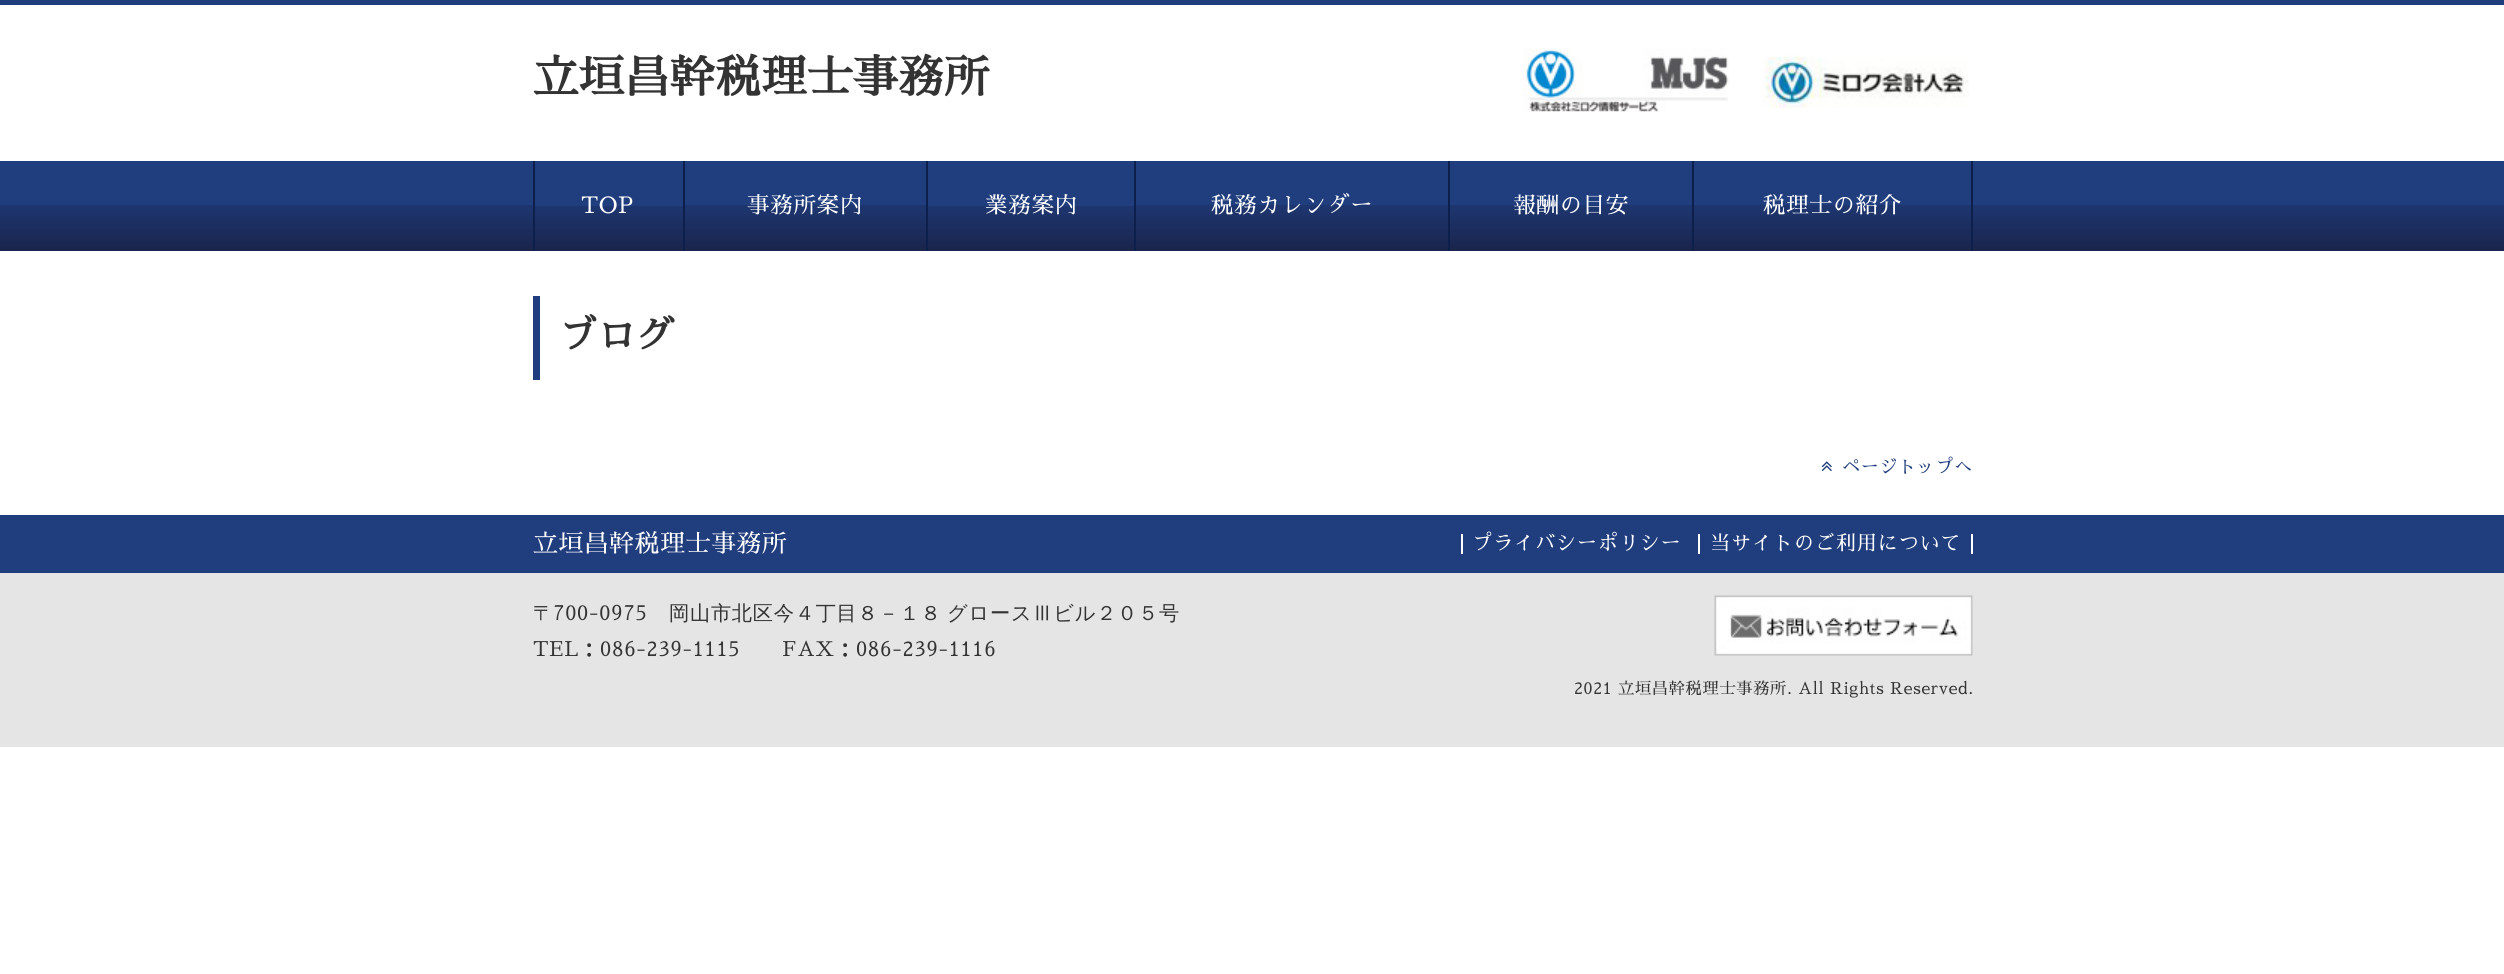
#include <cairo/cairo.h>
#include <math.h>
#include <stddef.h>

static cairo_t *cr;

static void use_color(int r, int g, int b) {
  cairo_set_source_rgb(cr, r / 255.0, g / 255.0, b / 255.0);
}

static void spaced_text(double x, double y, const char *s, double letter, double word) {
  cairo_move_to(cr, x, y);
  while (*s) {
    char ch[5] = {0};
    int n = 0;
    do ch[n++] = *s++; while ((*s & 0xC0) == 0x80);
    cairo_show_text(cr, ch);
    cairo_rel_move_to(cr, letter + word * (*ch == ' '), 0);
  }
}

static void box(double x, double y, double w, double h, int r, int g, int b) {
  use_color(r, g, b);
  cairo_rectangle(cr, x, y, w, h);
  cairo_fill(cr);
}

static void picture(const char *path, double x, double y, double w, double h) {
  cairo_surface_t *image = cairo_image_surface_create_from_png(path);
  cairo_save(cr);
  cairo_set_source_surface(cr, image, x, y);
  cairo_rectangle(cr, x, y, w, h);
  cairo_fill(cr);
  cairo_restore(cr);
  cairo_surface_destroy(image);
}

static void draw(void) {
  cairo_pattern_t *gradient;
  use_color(255, 255, 255);
  cairo_paint(cr);
  box(0, 0, 2504, 5, 32, 61, 125);
  picture("img_01.png", 1522, 48, 207, 64);
  picture("img_02.png", 1762, 55, 207, 53);
  gradient = cairo_pattern_create_linear(1253, 160, 1253, 251);
  cairo_pattern_add_color_stop_rgba(gradient, 0.5, 0.125, 0.239, 0.49, 1);
  cairo_pattern_add_color_stop_rgba(gradient, 0.5, 0.114, 0.212, 0.439, 1);
  cairo_pattern_add_color_stop_rgba(gradient, 1, 0.102, 0.141, 0.298, 1);
  cairo_set_source(cr, gradient);
  cairo_pattern_destroy(gradient);
  cairo_rectangle(cr, 0, 161, 2504, 90);
  cairo_fill(cr);
  gradient = cairo_pattern_create_linear(608, 161, 608, 251);
  cairo_pattern_add_color_stop_rgba(gradient, 0.5, 0.125, 0.239, 0.49, 1);
  cairo_pattern_add_color_stop_rgba(gradient, 0.5, 0.114, 0.212, 0.439, 1);
  cairo_pattern_add_color_stop_rgba(gradient, 1, 0.102, 0.141, 0.298, 1);
  cairo_set_source(cr, gradient);
  cairo_pattern_destroy(gradient);
  cairo_rectangle(cr, 535, 205, 148, 1);
  cairo_fill(cr);
  box(533, 161, 2, 90, 13, 32, 76);
  box(683, 161, 2, 90, 13, 32, 76);
  gradient = cairo_pattern_create_linear(1031, 161, 1031, 251);
  cairo_pattern_add_color_stop_rgba(gradient, 0.5, 0.125, 0.239, 0.49, 1);
  cairo_pattern_add_color_stop_rgba(gradient, 0.5, 0.114, 0.212, 0.439, 1);
  cairo_pattern_add_color_stop_rgba(gradient, 1, 0.102, 0.141, 0.298, 1);
  cairo_set_source(cr, gradient);
  cairo_pattern_destroy(gradient);
  cairo_rectangle(cr, 928, 205, 206, 1);
  cairo_fill(cr);
  box(926, 161, 2, 90, 13, 32, 76);
  box(1134, 161, 2, 90, 13, 32, 76);
  box(1448, 161, 2, 90, 13, 32, 76);
  box(1971, 161, 2, 90, 13, 32, 76);
  box(1692, 161, 2, 90, 13, 32, 76);
  box(533, 296, 7, 84, 32, 61, 125);
  picture("img_03.png", 1821, 461, 11, 10);
  box(0, 515, 2504, 58, 32, 61, 125);
  box(1461, 534, 2, 20, 255, 255, 255);
  box(1971, 534, 2, 20, 255, 255, 255);
  box(1698, 534, 2, 20, 255, 255, 255);
  box(0, 573, 2504, 174, 229, 229, 229);
  picture("img_04.png", 1714, 595, 259, 61);
  cairo_select_font_face(cr, "Sawarabi Mincho", CAIRO_FONT_SLANT_NORMAL, CAIRO_FONT_WEIGHT_BOLD);
  cairo_set_font_size(cr, 45);
  use_color(51, 51, 51);
  spaced_text(533, 93, "立垣昌幹税理士事務所", 0.7, 0);
  cairo_select_font_face(cr, "Sawarabi Mincho", CAIRO_FONT_SLANT_NORMAL, CAIRO_FONT_WEIGHT_NORMAL);
  cairo_set_font_size(cr, 22.5);
  use_color(255, 255, 255);
  spaced_text(581, 213, "TOP", 0.7, 0);
  spaced_text(747, 213, "事務所案内", 0.7, 0);
  spaced_text(985, 213, "業務案内", 0.7, 0);
  spaced_text(1211, 213, "税務カレンダー", 0.7, 0);
  spaced_text(1513, 213, "報酬の目安", 0.7, 0);
  spaced_text(1763, 213, "税理士の紹介", 0.7, 0);
  cairo_select_font_face(cr, "Sawarabi Mincho", CAIRO_FONT_SLANT_NORMAL, CAIRO_FONT_WEIGHT_BOLD);
  cairo_set_font_size(cr, 38);
  use_color(51, 51, 51);
  spaced_text(559, 349, "ブログ", 0.7, 0);
  cairo_select_font_face(cr, "Sawarabi Mincho", CAIRO_FONT_SLANT_NORMAL, CAIRO_FONT_WEIGHT_NORMAL);
  cairo_set_font_size(cr, 18);
  use_color(32, 61, 125);
  spaced_text(1842, 473, "ページトップへ", 0.7, 0);
  cairo_set_font_size(cr, 24.75);
  use_color(255, 255, 255);
  spaced_text(533, 552, "立垣昌幹税理士事務所", 0.7, 0);
  cairo_set_font_size(cr, 20.25);
  spaced_text(1472, 550, "プライバシーポリシー", 0.7, 0);
  spaced_text(1710, 550, "当サイトのご利用について", 0.7, 0);
  cairo_select_font_face(cr, "WenQuanYi Zen Hei Medium", CAIRO_FONT_SLANT_NORMAL, CAIRO_FONT_WEIGHT_NORMAL);
  use_color(51, 51, 51);
  spaced_text(533, 620, "〒", 0.7, 0);
  cairo_select_font_face(cr, "Sawarabi Mincho", CAIRO_FONT_SLANT_NORMAL, CAIRO_FONT_WEIGHT_NORMAL);
  spaced_text(553, 620, "700-0975", 0.7, 0);
  cairo_select_font_face(cr, "WenQuanYi Zen Hei Medium", CAIRO_FONT_SLANT_NORMAL, CAIRO_FONT_WEIGHT_NORMAL);
  spaced_text(669, 620, "岡山市北区今４丁目８－１８ グロースⅢビル２０５号", 0.7, -1);
  cairo_select_font_face(cr, "Sawarabi Mincho", CAIRO_FONT_SLANT_NORMAL, CAIRO_FONT_WEIGHT_NORMAL);
  spaced_text(533, 656, "TEL：086-239-1115　　FAX：086-239-1116", 0.7, 0);
  cairo_set_font_size(cr, 16.2);
  spaced_text(1574, 694, "2021 立垣昌幹税理士事務所. All Rights Reserved.", 0.7, 0);
}

int main(void) {
  cairo_surface_t *surface = cairo_image_surface_create(CAIRO_FORMAT_RGB24, 2504, 974);
  cr = cairo_create(surface);
  cairo_font_options_t *options = cairo_font_options_create();
  cairo_font_options_set_hint_metrics(options, CAIRO_HINT_METRICS_OFF);
  cairo_font_options_set_hint_style(options, CAIRO_HINT_STYLE_NONE);
  cairo_set_font_options(cr, options);
  cairo_set_miter_limit(cr, 4);
  draw();
  cairo_surface_write_to_png(surface, "out.png");
  cairo_font_options_destroy(options);
  cairo_destroy(cr);
  cairo_surface_destroy(surface);
  return 0;
}
